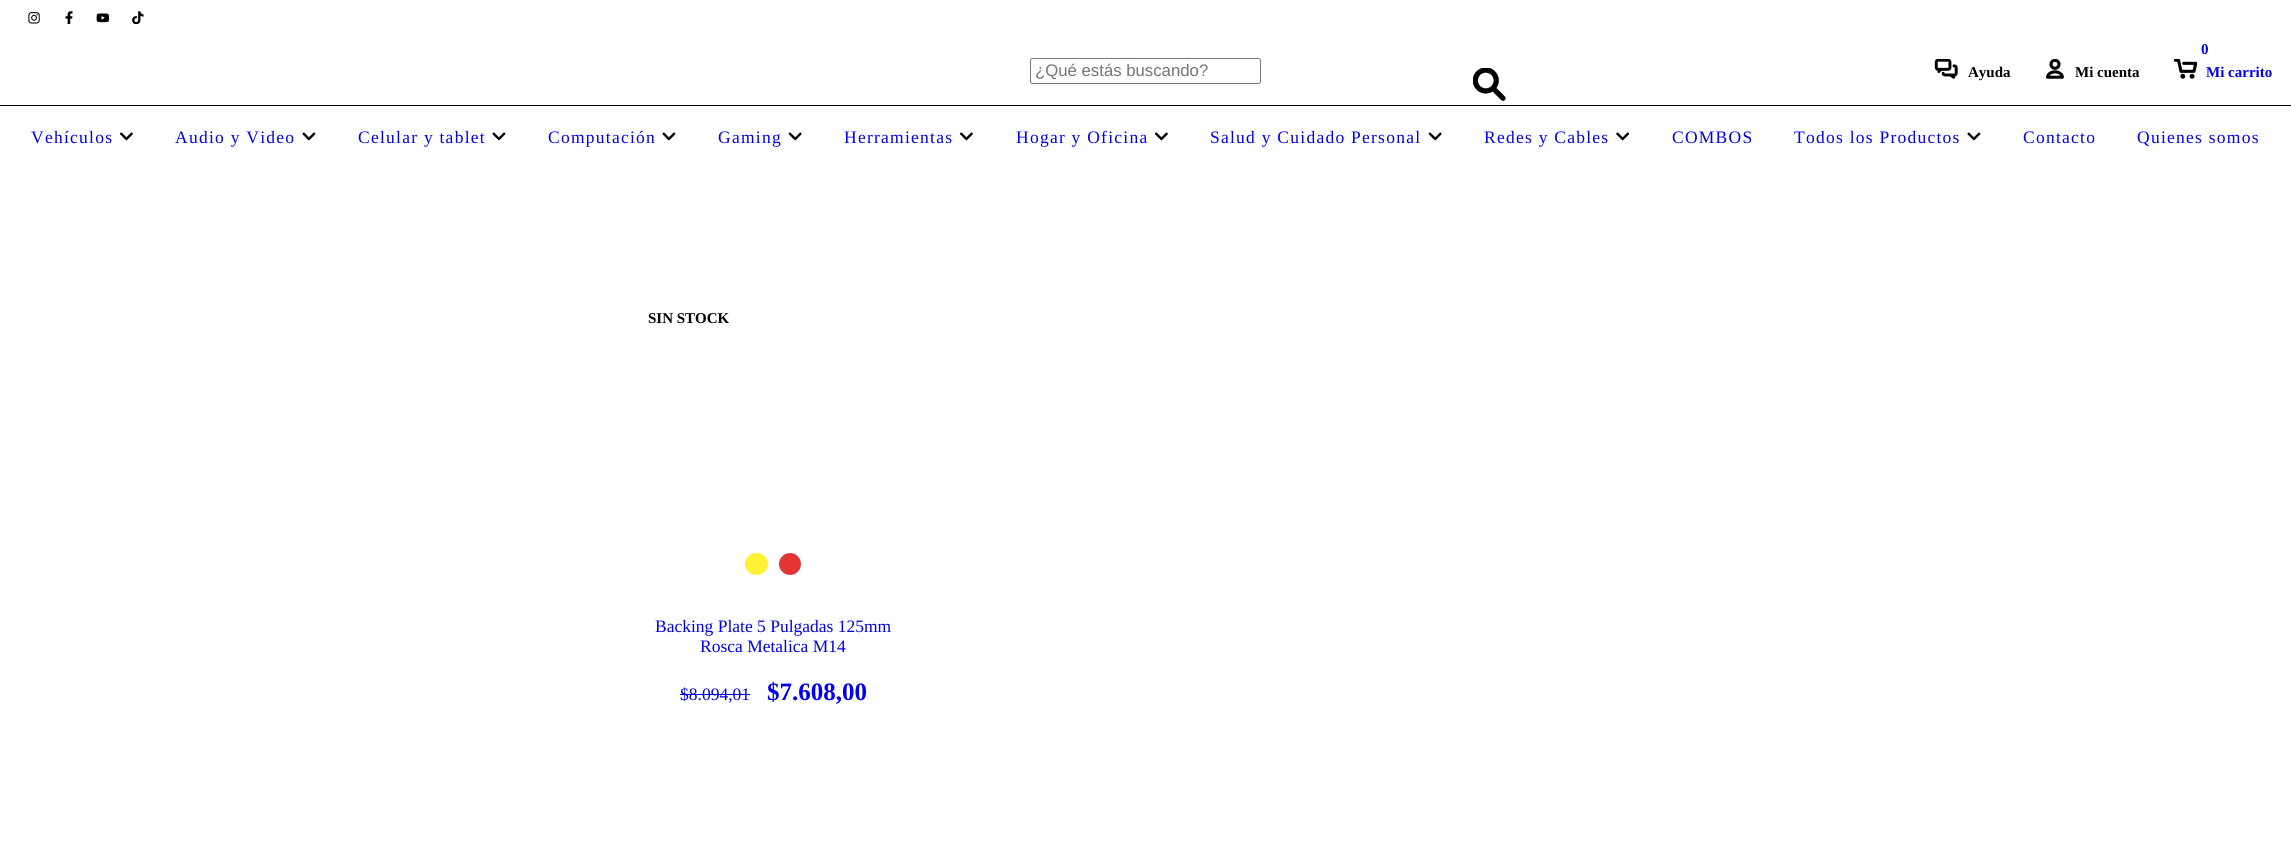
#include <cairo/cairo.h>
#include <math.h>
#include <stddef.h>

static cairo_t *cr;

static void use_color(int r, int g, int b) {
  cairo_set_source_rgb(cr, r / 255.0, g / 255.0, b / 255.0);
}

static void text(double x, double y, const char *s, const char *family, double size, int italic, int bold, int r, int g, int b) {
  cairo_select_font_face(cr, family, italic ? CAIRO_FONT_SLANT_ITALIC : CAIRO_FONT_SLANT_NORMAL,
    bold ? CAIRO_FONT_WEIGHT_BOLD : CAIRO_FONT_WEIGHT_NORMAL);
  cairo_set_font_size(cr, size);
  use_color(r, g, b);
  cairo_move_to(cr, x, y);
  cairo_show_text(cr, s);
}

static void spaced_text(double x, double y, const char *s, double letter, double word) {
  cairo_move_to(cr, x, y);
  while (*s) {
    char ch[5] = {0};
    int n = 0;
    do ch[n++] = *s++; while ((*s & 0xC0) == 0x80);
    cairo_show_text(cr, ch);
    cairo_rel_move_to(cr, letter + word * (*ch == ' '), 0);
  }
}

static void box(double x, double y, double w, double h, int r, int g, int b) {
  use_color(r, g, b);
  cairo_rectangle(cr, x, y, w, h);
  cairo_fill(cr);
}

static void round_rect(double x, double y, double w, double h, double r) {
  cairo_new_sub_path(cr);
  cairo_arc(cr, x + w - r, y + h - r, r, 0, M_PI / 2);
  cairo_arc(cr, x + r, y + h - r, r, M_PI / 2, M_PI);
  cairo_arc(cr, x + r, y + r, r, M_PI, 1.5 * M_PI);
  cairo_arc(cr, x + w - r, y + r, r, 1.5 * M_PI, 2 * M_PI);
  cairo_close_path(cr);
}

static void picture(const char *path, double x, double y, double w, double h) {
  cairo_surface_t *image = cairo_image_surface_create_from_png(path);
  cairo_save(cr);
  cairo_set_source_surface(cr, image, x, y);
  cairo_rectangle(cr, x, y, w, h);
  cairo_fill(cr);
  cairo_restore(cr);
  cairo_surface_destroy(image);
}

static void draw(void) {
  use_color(255, 255, 255);
  cairo_paint(cr);
  picture("img_01.png", 28, 12, 12, 12);
  picture("img_02.png", 65, 11, 8, 13);
  picture("img_03.png", 96, 13, 13, 10);
  picture("img_04.png", 132, 11, 12, 13);
  round_rect(1030.5, 58.5, 230, 25, 2);
  use_color(118, 118, 118);
  cairo_set_line_width(cr, 1);
  cairo_stroke(cr);
  picture("img_05.png", 1473, 68, 33, 33);
  picture("img_06.png", 1934, 59, 24, 20);
  picture("img_07.png", 2046, 59, 18, 20);
  picture("img_08.png", 2174, 59, 23, 20);
  box(0, 105, 2291, 1, 0, 0, 0);
  picture("img_09.png", 119, 132, 14, 9);
  picture("img_10.png", 302, 132, 14, 9);
  picture("img_10.png", 492, 132, 14, 9);
  picture("img_10.png", 662, 132, 14, 9);
  picture("img_11.png", 788, 132, 14, 9);
  picture("img_09.png", 959, 132, 14, 9);
  picture("img_09.png", 1154, 132, 14, 9);
  picture("img_11.png", 1428, 132, 14, 9);
  picture("img_12.png", 1616, 132, 14, 9);
  picture("img_10.png", 1967, 132, 14, 9);
  use_color(255, 241, 53);
  round_rect(745, 553, 23, 22, 11);
  cairo_fill(cr);
  use_color(227, 51, 51);
  cairo_arc(cr, 790, 564, 11, 0, 2 * M_PI);
  cairo_fill(cr);
  box(680, 694, 70, 1, 0, 0, 238);
  text(1035, 76, "¿Qué estás buscando?", "Liberation Sans", 16.75, 0, 0, 117, 117, 117);
  text(1968, 77, "Ayuda", "Liberation Serif", 15, 0, 1, 0, 0, 0);
  text(2075, 77, "Mi cuenta", "Liberation Serif", 15, 0, 1, 0, 0, 0);
  text(2201, 54, "0", "Liberation Serif", 15, 0, 1, 0, 0, 238);
  text(2206, 77, "Mi carrito", "Liberation Serif", 15, 0, 1, 0, 0, 238);
  cairo_select_font_face(cr, "Liberation Serif", CAIRO_FONT_SLANT_NORMAL, CAIRO_FONT_WEIGHT_NORMAL);
  cairo_set_font_size(cr, 17.5);
  spaced_text(31, 143, "Vehículos", 1.25, 0);
  spaced_text(175, 143, "Audio y Video", 1.25, 0);
  spaced_text(358, 143, "Celular y tablet", 1.25, 0);
  spaced_text(548, 143, "Computación", 1.25, 0);
  spaced_text(718, 143, "Gaming", 1.25, 0);
  spaced_text(844, 143, "Herramientas", 1.25, 0);
  spaced_text(1016, 143, "Hogar y Oficina", 1.25, 0);
  spaced_text(1210, 143, "Salud y Cuidado Personal", 1.25, 0);
  spaced_text(1484, 143, "Redes y Cables", 1.25, 0);
  spaced_text(1672, 143, "COMBOS", 1.25, 0);
  spaced_text(1794, 143, "Todos los Productos", 1.25, 0);
  spaced_text(2023, 143, "Contacto", 1.25, 0);
  spaced_text(2137, 143, "Quienes somos", 1.25, 0);
  text(648, 323, "SIN STOCK", "Liberation Serif", 15, 0, 1, 0, 0, 0);
  text(655, 632, "Backing Plate 5 Pulgadas 125mm", "Liberation Serif", 17.5, 0, 0, 0, 0, 238);
  text(700, 652, "Rosca Metalica M14", "Liberation Serif", 17.5, 0, 0, 0, 0, 238);
  text(680, 700, "$8.094,01", "Liberation Serif", 17.5, 0, 0, 0, 0, 238);
  text(767, 700, "$7.608,00", "Liberation Serif", 25, 0, 1, 0, 0, 238);
}

int main(void) {
  cairo_surface_t *surface = cairo_image_surface_create(CAIRO_FORMAT_RGB24, 2291, 865);
  cr = cairo_create(surface);
  cairo_font_options_t *options = cairo_font_options_create();
  cairo_font_options_set_hint_metrics(options, CAIRO_HINT_METRICS_OFF);
  cairo_font_options_set_hint_style(options, CAIRO_HINT_STYLE_NONE);
  cairo_set_font_options(cr, options);
  cairo_set_miter_limit(cr, 4);
  draw();
  cairo_surface_write_to_png(surface, "out.png");
  cairo_font_options_destroy(options);
  cairo_destroy(cr);
  cairo_surface_destroy(surface);
  return 0;
}
